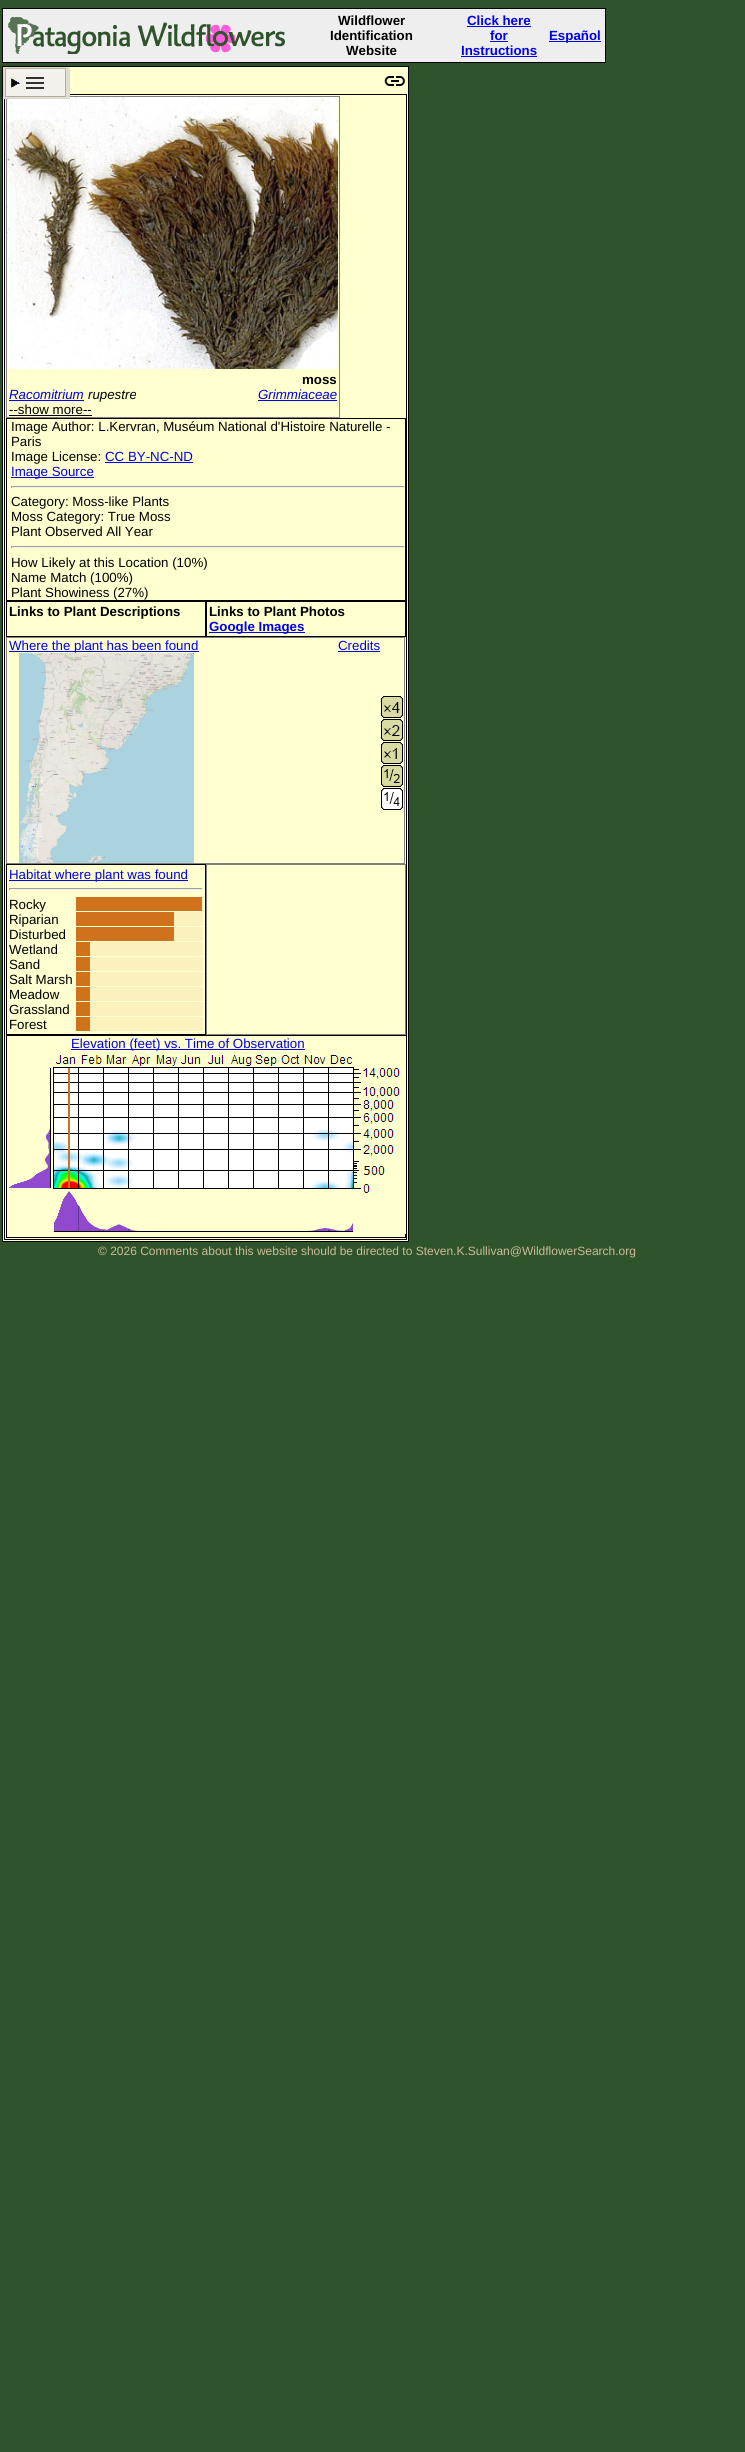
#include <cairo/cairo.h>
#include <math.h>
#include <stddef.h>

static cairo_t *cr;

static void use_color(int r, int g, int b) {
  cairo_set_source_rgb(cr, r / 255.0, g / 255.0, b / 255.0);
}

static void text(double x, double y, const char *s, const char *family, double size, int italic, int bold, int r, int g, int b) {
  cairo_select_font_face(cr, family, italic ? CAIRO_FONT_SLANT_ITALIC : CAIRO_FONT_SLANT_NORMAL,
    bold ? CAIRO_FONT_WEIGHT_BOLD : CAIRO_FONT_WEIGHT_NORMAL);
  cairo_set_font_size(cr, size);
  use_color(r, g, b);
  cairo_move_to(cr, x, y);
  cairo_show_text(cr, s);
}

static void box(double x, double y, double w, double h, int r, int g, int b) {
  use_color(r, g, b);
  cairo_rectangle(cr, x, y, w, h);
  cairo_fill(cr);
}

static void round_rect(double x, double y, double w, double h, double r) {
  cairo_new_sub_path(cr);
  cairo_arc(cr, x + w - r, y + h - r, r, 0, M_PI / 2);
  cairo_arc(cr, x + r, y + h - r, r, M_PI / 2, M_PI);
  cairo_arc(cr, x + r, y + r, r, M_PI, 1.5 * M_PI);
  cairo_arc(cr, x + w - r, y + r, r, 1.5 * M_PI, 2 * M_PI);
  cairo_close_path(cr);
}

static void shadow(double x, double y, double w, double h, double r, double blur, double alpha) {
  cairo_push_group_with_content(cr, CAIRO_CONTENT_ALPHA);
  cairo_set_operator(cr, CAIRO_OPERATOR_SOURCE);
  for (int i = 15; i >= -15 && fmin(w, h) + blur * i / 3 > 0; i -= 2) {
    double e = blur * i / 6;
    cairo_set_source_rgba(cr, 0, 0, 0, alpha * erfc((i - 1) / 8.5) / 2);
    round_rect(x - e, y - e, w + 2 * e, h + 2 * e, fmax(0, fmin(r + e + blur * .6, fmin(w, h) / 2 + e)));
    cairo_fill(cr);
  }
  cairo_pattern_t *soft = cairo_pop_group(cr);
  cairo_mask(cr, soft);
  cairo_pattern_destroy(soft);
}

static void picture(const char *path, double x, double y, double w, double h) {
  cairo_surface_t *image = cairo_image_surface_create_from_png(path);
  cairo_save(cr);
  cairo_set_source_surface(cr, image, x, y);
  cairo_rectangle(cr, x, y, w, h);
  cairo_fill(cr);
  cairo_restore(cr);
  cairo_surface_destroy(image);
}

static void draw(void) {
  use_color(47, 84, 44);
  cairo_paint(cr);
  use_color(238, 238, 238);
  cairo_rectangle(cr, 2.5, 8.5, 603, 54);
  cairo_fill_preserve(cr);
  use_color(0, 0, 0);
  cairo_set_line_width(cr, 1);
  cairo_stroke(cr);
  picture("img_01.png", 7, 17, 278, 37);
  box(467, 26, 64, 1, 0, 0, 238);
  box(490, 41, 18, 1, 0, 0, 238);
  box(461, 56, 76, 1, 0, 0, 238);
  box(549, 41, 52, 1, 0, 0, 238);
  use_color(0, 0, 0);
  shadow(7, 102, 343, 284, 11, 5, 0.53);
  use_color(255, 255, 208);
  cairo_rectangle(cr, 2.5, 66.5, 406, 1175);
  cairo_fill_preserve(cr);
  use_color(0, 0, 0);
  cairo_stroke(cr);
  cairo_rectangle(cr, 4.5, 94.5, 402, 1145);
  cairo_stroke(cr);
  cairo_rectangle(cr, 6.5, 96.5, 333, 321);
  use_color(128, 128, 128);
  cairo_stroke(cr);
  picture("img_04.png", 7, 97, 331, 272);
  box(9, 400, 75, 1, 0, 0, 238);
  box(258, 400, 79, 1, 0, 0, 238);
  box(9, 415, 83, 1, 0, 0, 0);
  cairo_rectangle(cr, 6.5, 418.5, 399, 182);
  cairo_stroke(cr);
  box(105, 462, 88, 1, 0, 0, 238);
  box(11, 477, 83, 1, 0, 0, 238);
  box(11, 486, 394, 1, 159, 159, 159);
  box(404, 486, 1, 2, 238, 238, 238);
  box(11, 487, 394, 1, 238, 238, 238);
  box(11, 486, 1, 2, 159, 159, 159);
  box(11, 546, 394, 1, 159, 159, 159);
  box(404, 546, 1, 2, 238, 238, 238);
  box(11, 547, 394, 1, 238, 238, 238);
  box(11, 546, 1, 2, 159, 159, 159);
  cairo_rectangle(cr, 6.5, 601.5, 199, 35);
  use_color(0, 0, 0);
  cairo_stroke(cr);
  cairo_rectangle(cr, 206.5, 601.5, 199, 35);
  cairo_stroke(cr);
  box(209, 632, 96, 1, 0, 0, 238);
  cairo_rectangle(cr, 6.5, 637.5, 398, 226);
  use_color(128, 128, 128);
  cairo_stroke(cr);
  box(9, 651, 190, 1, 0, 0, 238);
  picture("img_05.png", 19, 653, 175, 210);
  picture("img_06.png", 20, 653, 171, 210);
  cairo_save(cr);
  cairo_rectangle(cr, 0, 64, 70, 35);
  cairo_clip(cr);
  use_color(0, 0, 0);
  shadow(2, 71, 294, 742, 0, 5, 0.53);
  cairo_restore(cr);
  box(3, 67, 67, 32, 224, 221, 208);
  box(6, 69, 59, 27, 243, 241, 235);
  picture("img_02.png", 10, 77, 34, 12);
  cairo_rectangle(cr, 5.5, 68.5, 60, 28);
  use_color(179, 175, 157);
  cairo_stroke(cr);
  picture("img_03.png", 384, 76, 22, 10);
  box(338, 651, 42, 1, 0, 0, 238);
  picture("img_07.png", 381, 696, 22, 114);
  cairo_rectangle(cr, 6.5, 864.5, 199, 170);
  use_color(0, 0, 0);
  cairo_stroke(cr);
  box(9, 880, 179, 1, 0, 0, 238);
  box(9, 888, 194, 1, 159, 159, 159);
  box(202, 888, 1, 2, 238, 238, 238);
  box(9, 889, 194, 1, 238, 238, 238);
  box(9, 888, 1, 2, 159, 159, 159);
  box(76, 897, 126, 14, 208, 114, 27);
  box(202, 897, 1, 14, 250, 241, 189);
  box(76, 912, 98, 14, 208, 114, 27);
  box(174, 912, 29, 14, 250, 241, 189);
  box(76, 927, 98, 14, 208, 114, 27);
  box(174, 927, 29, 14, 250, 241, 189);
  box(76, 942, 14, 14, 208, 114, 27);
  box(90, 942, 113, 14, 250, 241, 189);
  box(76, 957, 14, 14, 208, 114, 27);
  box(90, 957, 113, 14, 250, 241, 189);
  box(76, 972, 14, 14, 208, 114, 27);
  box(90, 972, 113, 14, 250, 241, 189);
  box(76, 987, 14, 14, 208, 114, 27);
  box(90, 987, 113, 14, 250, 241, 189);
  box(76, 1002, 14, 14, 208, 114, 27);
  box(90, 1002, 113, 14, 250, 241, 189);
  box(76, 1017, 14, 14, 208, 114, 27);
  box(90, 1017, 113, 14, 250, 241, 189);
  cairo_rectangle(cr, 206.5, 864.5, 199, 170);
  use_color(128, 128, 128);
  cairo_stroke(cr);
  cairo_rectangle(cr, 6.5, 1035.5, 399, 202);
  use_color(0, 0, 0);
  cairo_stroke(cr);
  picture("img_08.png", 9, 1036, 397, 198);
  picture("img_09.png", 54, 1055, 346, 138);
  box(68, 1068, 2, 120, 208, 114, 27);
  box(71, 1049, 234, 1, 0, 0, 238);
  text(338, 25, "Wildflower", "Liberation Sans", 13.3, 0, 1, 0, 0, 0);
  text(330, 40, "Identification", "Liberation Sans", 13.3, 0, 1, 0, 0, 0);
  text(346, 55, "Website", "Liberation Sans", 13.3, 0, 1, 0, 0, 0);
  text(467, 25, "Click here", "Liberation Sans", 13.3, 0, 1, 0, 0, 238);
  text(490, 40, "for", "Liberation Sans", 13.3, 0, 1, 0, 0, 238);
  text(461, 55, "Instructions", "Liberation Sans", 13.3, 0, 1, 0, 0, 238);
  text(549, 40, "Español", "Liberation Sans", 13.3, 0, 1, 0, 0, 238);
  text(302, 384, "moss", "Liberation Sans", 13.3, 0, 1, 0, 0, 0);
  text(9, 399, "Racomitrium", "Liberation Sans", 13.3, 1, 0, 0, 0, 238);
  text(88, 399, "rupestre", "Liberation Sans", 13.3, 1, 0, 0, 0, 0);
  text(258, 399, "Grimmiaceae", "Liberation Sans", 13.3, 1, 0, 0, 0, 238);
  text(9, 414, "--show more--", "Liberation Sans", 13.3, 0, 0, 0, 0, 0);
  text(11, 431, "Image Author: L.Kervran, Muséum National d'Histoire Naturelle -", "Liberation Sans", 13.3, 0, 0, 0, 0, 0);
  text(11, 446, "Paris", "Liberation Sans", 13.3, 0, 0, 0, 0, 0);
  text(11, 461, "Image License:", "Liberation Sans", 13.3, 0, 0, 0, 0, 0);
  text(105, 461, "CC BY-NC-ND", "Liberation Sans", 13.3, 0, 0, 0, 0, 238);
  text(11, 476, "Image Source", "Liberation Sans", 13.3, 0, 0, 0, 0, 238);
  text(11, 506, "Category: Moss-like Plants", "Liberation Sans", 13.3, 0, 0, 0, 0, 0);
  text(11, 521, "Moss Category: True Moss", "Liberation Sans", 13.3, 0, 0, 0, 0, 0);
  text(11, 536, "Plant Observed All Year", "Liberation Sans", 13.3, 0, 0, 0, 0, 0);
  text(11, 567, "How Likely at this Location (10%)", "Liberation Sans", 13.3, 0, 0, 0, 0, 0);
  text(11, 582, "Name Match (100%)", "Liberation Sans", 13.3, 0, 0, 0, 0, 0);
  text(11, 597, "Plant Showiness (27%)", "Liberation Sans", 13.3, 0, 0, 0, 0, 0);
  text(9, 616, "Links to Plant Descriptions", "Liberation Sans", 13.3, 0, 1, 0, 0, 0);
  text(209, 616, "Links to Plant Photos", "Liberation Sans", 13.3, 0, 1, 0, 0, 0);
  text(209, 631, "Google Images", "Liberation Sans", 13.3, 0, 1, 0, 0, 238);
  text(9, 650, "Where the plant has been found", "Liberation Sans", 13.3, 0, 0, 0, 0, 238);
  text(338, 650, "Credits", "Liberation Sans", 13.3, 0, 0, 0, 0, 238);
  text(9, 879, "Habitat where plant was found", "Liberation Sans", 13.3, 0, 0, 0, 0, 238);
  text(9, 909, "Rocky", "Liberation Sans", 13.3, 0, 0, 0, 0, 0);
  text(9, 924, "Riparian", "Liberation Sans", 13.3, 0, 0, 0, 0, 0);
  text(9, 939, "Disturbed", "Liberation Sans", 13.3, 0, 0, 0, 0, 0);
  text(9, 954, "Wetland", "Liberation Sans", 13.3, 0, 0, 0, 0, 0);
  text(9, 969, "Sand", "Liberation Sans", 13.3, 0, 0, 0, 0, 0);
  text(9, 984, "Salt Marsh", "Liberation Sans", 13.3, 0, 0, 0, 0, 0);
  text(9, 999, "Meadow", "Liberation Sans", 13.3, 0, 0, 0, 0, 0);
  text(9, 1014, "Grassland", "Liberation Sans", 13.3, 0, 0, 0, 0, 0);
  text(9, 1029, "Forest", "Liberation Sans", 13.3, 0, 0, 0, 0, 0);
  text(71, 1048, "Elevation (feet) vs. Time of Observation", "Liberation Sans", 13.3, 0, 0, 0, 0, 238);
  text(98, 1255, "© 2026 Comments about this website should be directed to Steven.K.Sullivan@WildflowerSearch.org", "Liberation Sans", 12, 0, 0, 204, 187, 153);
}

int main(void) {
  cairo_surface_t *surface = cairo_image_surface_create(CAIRO_FORMAT_RGB24, 745, 2452);
  cr = cairo_create(surface);
  cairo_font_options_t *options = cairo_font_options_create();
  cairo_font_options_set_hint_metrics(options, CAIRO_HINT_METRICS_OFF);
  cairo_font_options_set_hint_style(options, CAIRO_HINT_STYLE_NONE);
  cairo_set_font_options(cr, options);
  cairo_set_miter_limit(cr, 4);
  draw();
  cairo_surface_write_to_png(surface, "out.png");
  cairo_font_options_destroy(options);
  cairo_destroy(cr);
  cairo_surface_destroy(surface);
  return 0;
}
